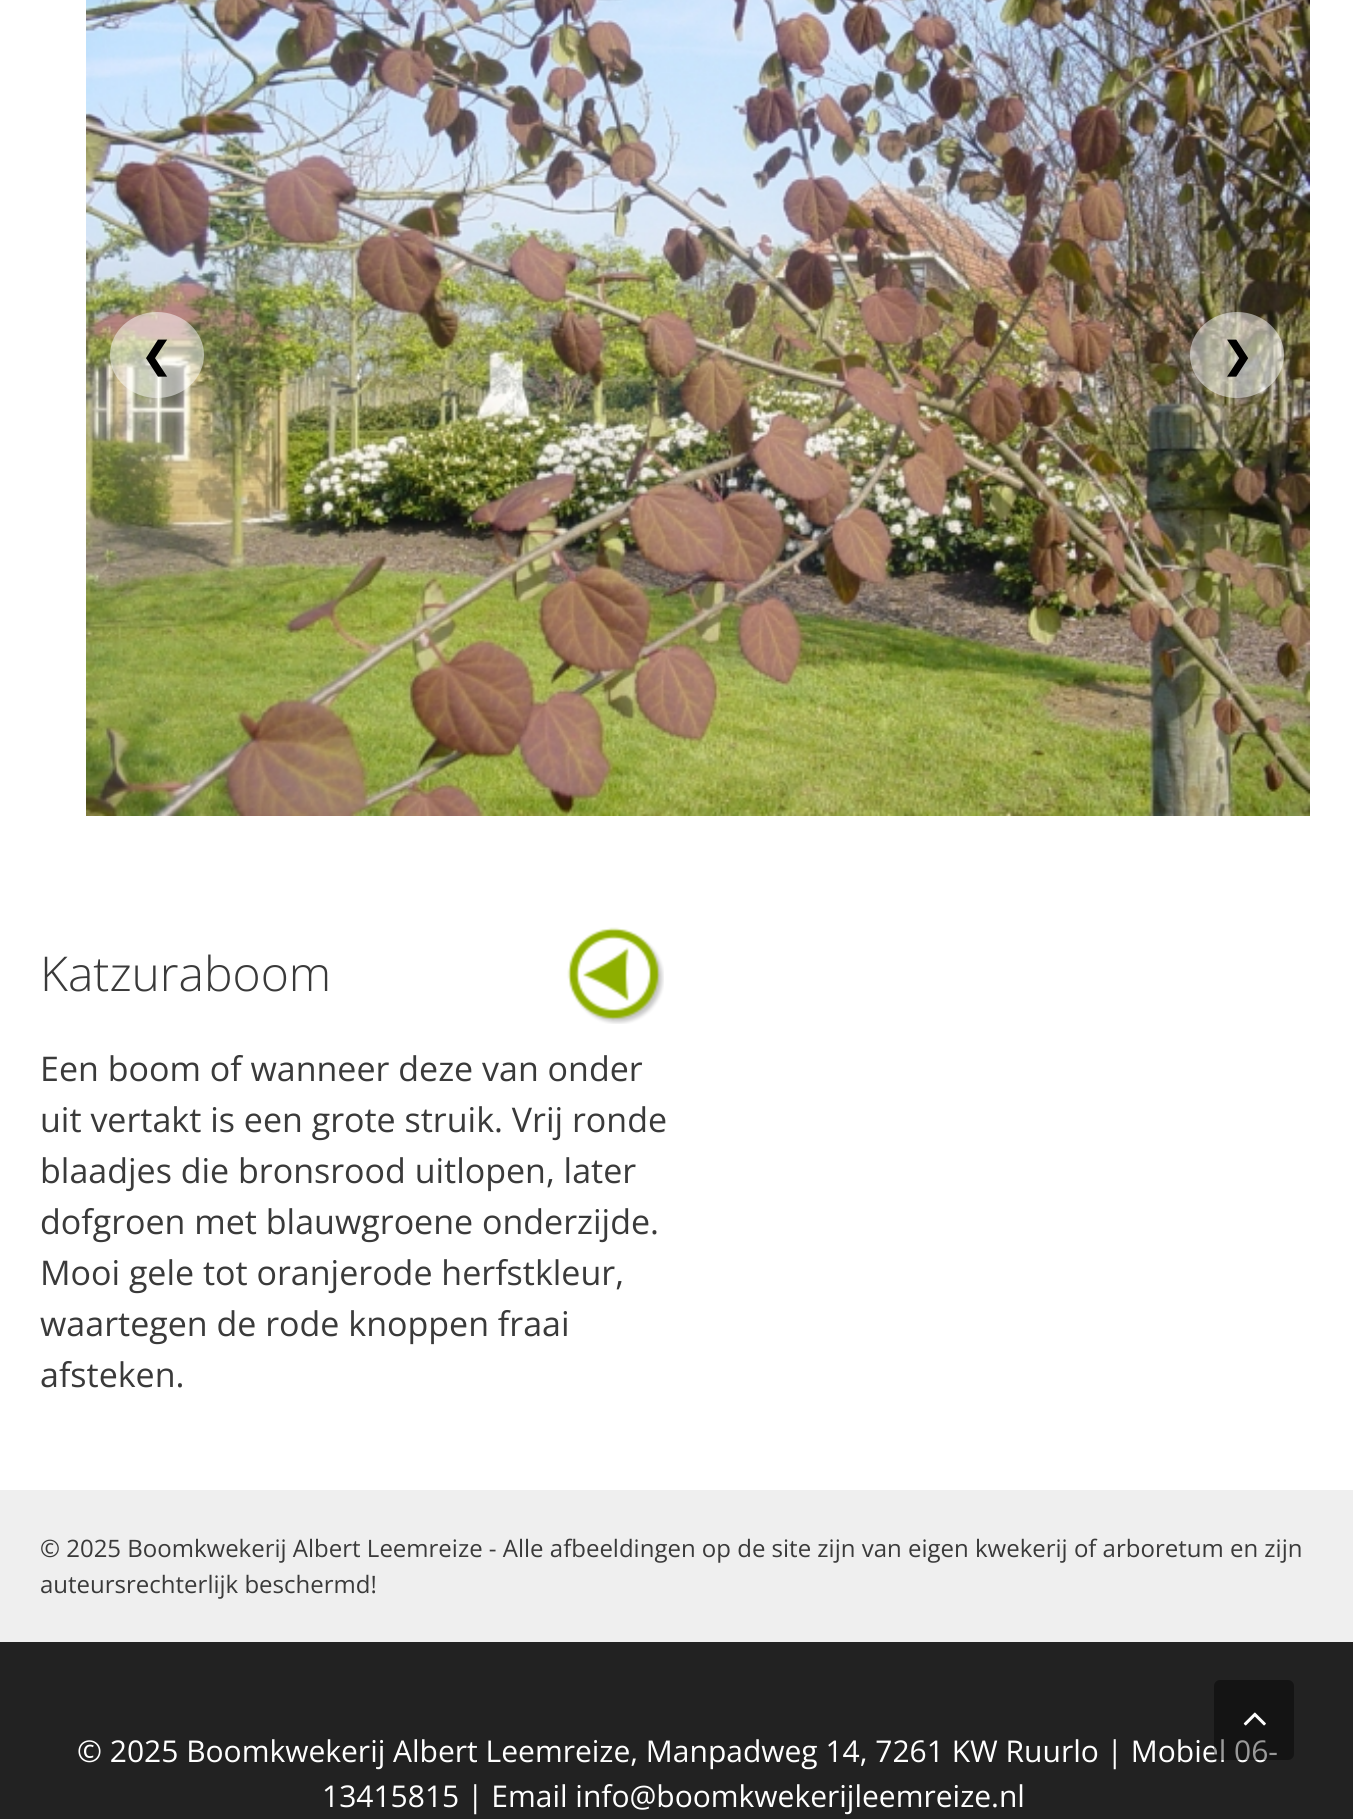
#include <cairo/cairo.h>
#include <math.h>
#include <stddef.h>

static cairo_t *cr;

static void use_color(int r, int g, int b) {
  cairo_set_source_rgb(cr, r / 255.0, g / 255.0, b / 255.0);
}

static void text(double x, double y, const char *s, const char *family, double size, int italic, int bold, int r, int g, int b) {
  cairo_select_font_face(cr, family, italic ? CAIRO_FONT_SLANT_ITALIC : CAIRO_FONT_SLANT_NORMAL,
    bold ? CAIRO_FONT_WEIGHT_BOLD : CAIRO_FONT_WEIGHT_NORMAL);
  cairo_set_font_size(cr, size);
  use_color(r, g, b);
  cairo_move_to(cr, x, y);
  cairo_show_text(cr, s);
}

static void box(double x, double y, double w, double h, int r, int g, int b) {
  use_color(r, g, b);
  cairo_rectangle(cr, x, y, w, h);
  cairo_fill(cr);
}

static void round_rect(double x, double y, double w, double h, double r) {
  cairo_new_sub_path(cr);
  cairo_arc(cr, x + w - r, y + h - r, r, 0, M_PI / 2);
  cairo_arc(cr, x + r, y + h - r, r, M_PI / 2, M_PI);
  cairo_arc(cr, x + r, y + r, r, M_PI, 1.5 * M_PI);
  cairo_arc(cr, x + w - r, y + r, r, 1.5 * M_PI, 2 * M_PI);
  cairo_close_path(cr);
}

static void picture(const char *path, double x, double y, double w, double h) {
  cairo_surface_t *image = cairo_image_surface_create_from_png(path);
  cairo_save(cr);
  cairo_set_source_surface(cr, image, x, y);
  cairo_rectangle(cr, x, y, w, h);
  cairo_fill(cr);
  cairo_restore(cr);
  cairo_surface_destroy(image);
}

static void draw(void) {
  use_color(239, 239, 239);
  cairo_paint(cr);
  box(0, 0, 1353, 1490, 255, 255, 255);
  picture("img_01.png", 86, 0, 1224, 816);
  cairo_set_source_rgba(cr, 1, 1, 1, 0.5);
  cairo_new_path(cr);
  cairo_move_to(cr, 157, 312);
  cairo_curve_to(cr, 183, 312, 204, 331.5, 204, 355);
  cairo_curve_to(cr, 204, 378.5, 183, 398, 157, 398);
  cairo_curve_to(cr, 131, 398, 110, 378.5, 110, 355);
  cairo_curve_to(cr, 110, 331.5, 131, 312, 157, 312);
  cairo_close_path(cr);
  cairo_fill(cr);
  cairo_new_path(cr);
  cairo_move_to(cr, 1237, 312);
  cairo_curve_to(cr, 1263, 312, 1284, 331.5, 1284, 355);
  cairo_curve_to(cr, 1284, 378.5, 1263, 398, 1237, 398);
  cairo_curve_to(cr, 1211, 398, 1190, 378.5, 1190, 355);
  cairo_curve_to(cr, 1190, 331.5, 1211, 312, 1237, 312);
  cairo_close_path(cr);
  cairo_fill(cr);
  picture("img_02.png", 567, 927, 97, 97);
  box(0, 1642, 1353, 177, 34, 34, 34);
  text(141, 368, "❮", "DejaVu Sans", 36, 0, 1, 0, 0, 0);
  text(1222, 368, "❯", "DejaVu Sans", 36, 0, 1, 0, 0, 0);
  text(40, 991, "Katzuraboom", "Open Sans Light", 48, 0, 0, 58, 58, 58);
  text(40, 1081, "Een boom of wanneer deze van onder", "Open Sans", 34, 0, 0, 58, 58, 58);
  text(40, 1132, "uit vertakt is een grote struik. Vrij ronde", "Open Sans", 34, 0, 0, 58, 58, 58);
  text(40, 1183, "blaadjes die bronsrood uitlopen, later", "Open Sans", 34, 0, 0, 58, 58, 58);
  text(40, 1234, "dofgroen met blauwgroene onderzijde.", "Open Sans", 34, 0, 0, 58, 58, 58);
  text(40, 1285, "Mooi gele tot oranjerode herfstkleur,", "Open Sans", 34, 0, 0, 58, 58, 58);
  text(40, 1336, "waartegen de rode knoppen fraai", "Open Sans", 34, 0, 0, 58, 58, 58);
  text(40, 1387, "afsteken.", "Open Sans", 34, 0, 0, 58, 58, 58);
  text(40, 1557, "© 2025 Boomkwekerij Albert Leemreize - Alle afbeeldingen op de site zijn van eigen kwekerij of arboretum en zijn", "Open Sans", 24, 0, 0, 58, 58, 58);
  text(40, 1593, "auteursrechterlijk beschermd!", "Open Sans", 24, 0, 0, 58, 58, 58);
  text(77, 1762, "© 2025 Boomkwekerij Albert Leemreize, Manpadweg 14, 7261 KW Ruurlo | Mobiel 06-", "Open Sans", 30, 0, 0, 255, 255, 255);
  cairo_set_source_rgba(cr, 0, 0, 0, 0.4);
  round_rect(1214, 1680, 80, 80, 6);
  cairo_fill(cr);
  picture("img_03.png", 1243, 1712, 23, 14);
  text(322, 1807, "13415815 | Email info@boomkwekerijleemreize.nl", "Open Sans", 30, 0, 0, 255, 255, 255);
}

int main(void) {
  cairo_surface_t *surface = cairo_image_surface_create(CAIRO_FORMAT_RGB24, 1353, 1819);
  cr = cairo_create(surface);
  cairo_font_options_t *options = cairo_font_options_create();
  cairo_font_options_set_hint_metrics(options, CAIRO_HINT_METRICS_OFF);
  cairo_font_options_set_hint_style(options, CAIRO_HINT_STYLE_NONE);
  cairo_set_font_options(cr, options);
  cairo_set_miter_limit(cr, 4);
  draw();
  cairo_surface_write_to_png(surface, "out.png");
  cairo_font_options_destroy(options);
  cairo_destroy(cr);
  cairo_surface_destroy(surface);
  return 0;
}
